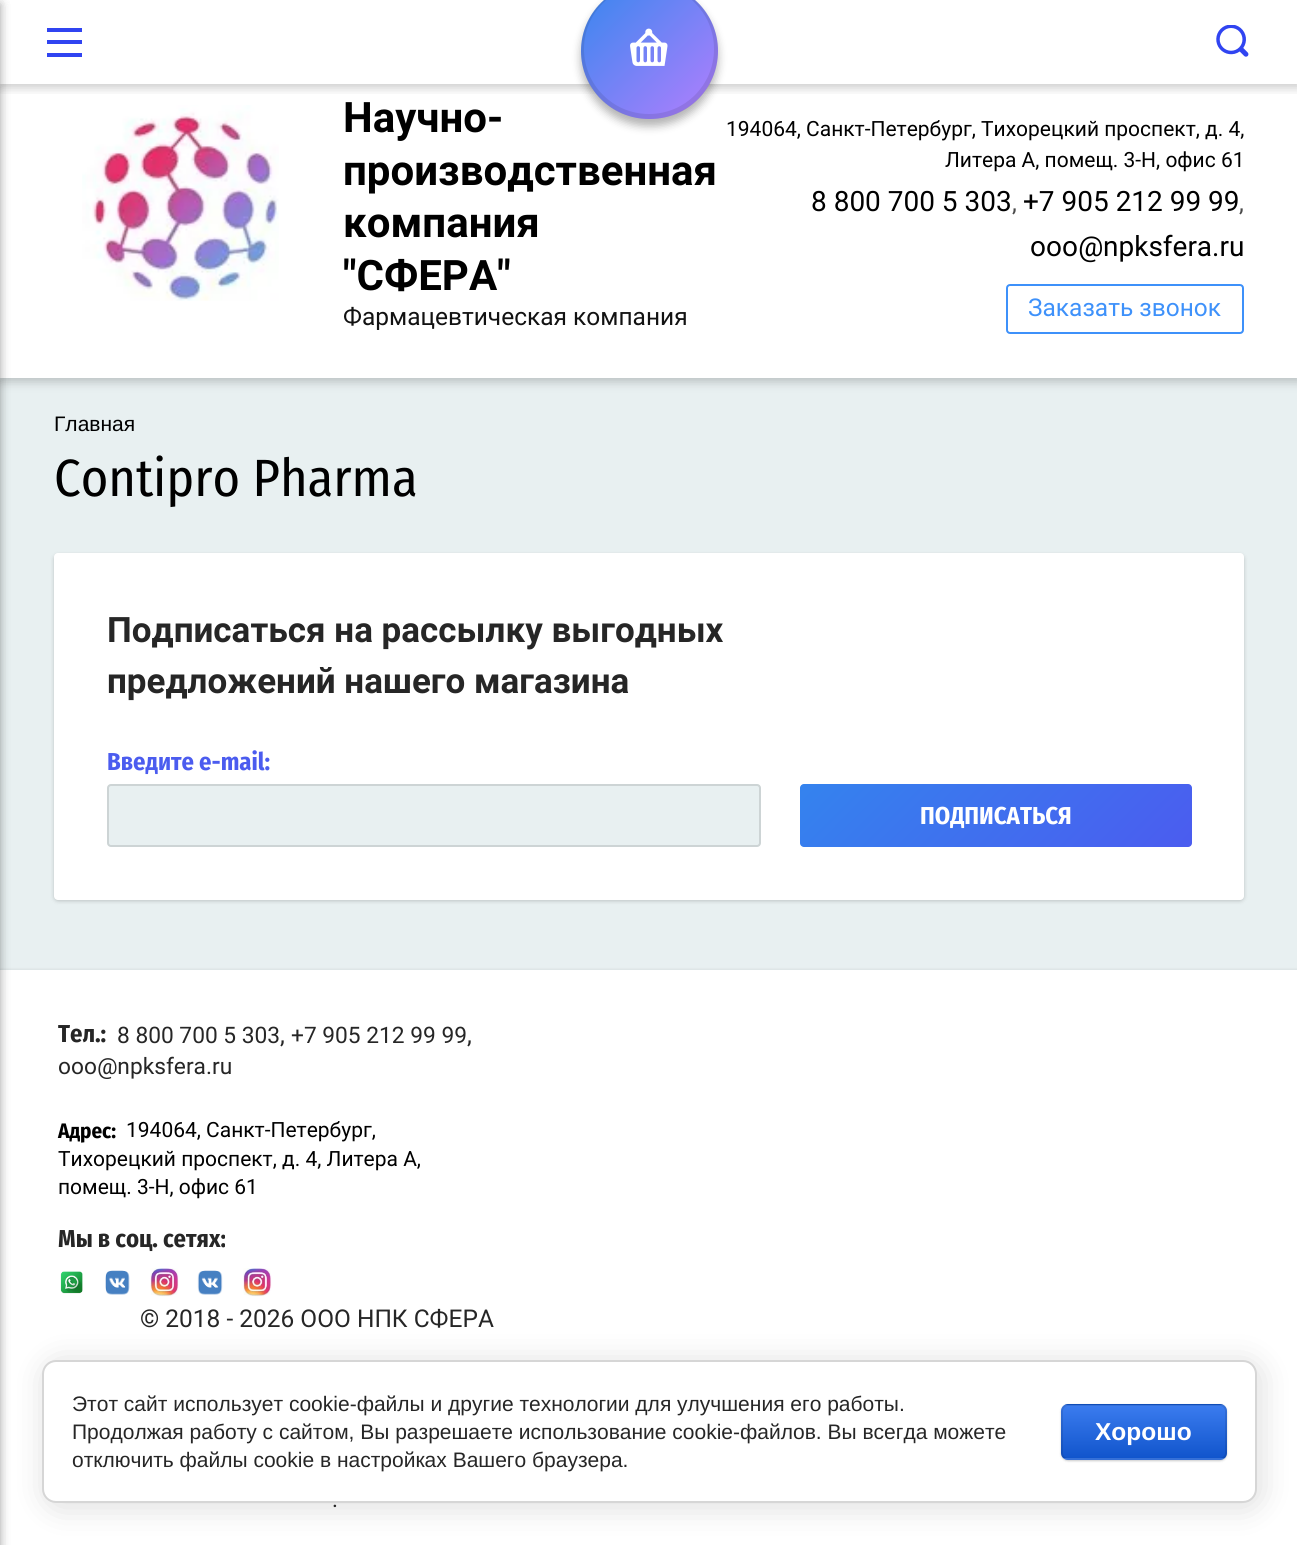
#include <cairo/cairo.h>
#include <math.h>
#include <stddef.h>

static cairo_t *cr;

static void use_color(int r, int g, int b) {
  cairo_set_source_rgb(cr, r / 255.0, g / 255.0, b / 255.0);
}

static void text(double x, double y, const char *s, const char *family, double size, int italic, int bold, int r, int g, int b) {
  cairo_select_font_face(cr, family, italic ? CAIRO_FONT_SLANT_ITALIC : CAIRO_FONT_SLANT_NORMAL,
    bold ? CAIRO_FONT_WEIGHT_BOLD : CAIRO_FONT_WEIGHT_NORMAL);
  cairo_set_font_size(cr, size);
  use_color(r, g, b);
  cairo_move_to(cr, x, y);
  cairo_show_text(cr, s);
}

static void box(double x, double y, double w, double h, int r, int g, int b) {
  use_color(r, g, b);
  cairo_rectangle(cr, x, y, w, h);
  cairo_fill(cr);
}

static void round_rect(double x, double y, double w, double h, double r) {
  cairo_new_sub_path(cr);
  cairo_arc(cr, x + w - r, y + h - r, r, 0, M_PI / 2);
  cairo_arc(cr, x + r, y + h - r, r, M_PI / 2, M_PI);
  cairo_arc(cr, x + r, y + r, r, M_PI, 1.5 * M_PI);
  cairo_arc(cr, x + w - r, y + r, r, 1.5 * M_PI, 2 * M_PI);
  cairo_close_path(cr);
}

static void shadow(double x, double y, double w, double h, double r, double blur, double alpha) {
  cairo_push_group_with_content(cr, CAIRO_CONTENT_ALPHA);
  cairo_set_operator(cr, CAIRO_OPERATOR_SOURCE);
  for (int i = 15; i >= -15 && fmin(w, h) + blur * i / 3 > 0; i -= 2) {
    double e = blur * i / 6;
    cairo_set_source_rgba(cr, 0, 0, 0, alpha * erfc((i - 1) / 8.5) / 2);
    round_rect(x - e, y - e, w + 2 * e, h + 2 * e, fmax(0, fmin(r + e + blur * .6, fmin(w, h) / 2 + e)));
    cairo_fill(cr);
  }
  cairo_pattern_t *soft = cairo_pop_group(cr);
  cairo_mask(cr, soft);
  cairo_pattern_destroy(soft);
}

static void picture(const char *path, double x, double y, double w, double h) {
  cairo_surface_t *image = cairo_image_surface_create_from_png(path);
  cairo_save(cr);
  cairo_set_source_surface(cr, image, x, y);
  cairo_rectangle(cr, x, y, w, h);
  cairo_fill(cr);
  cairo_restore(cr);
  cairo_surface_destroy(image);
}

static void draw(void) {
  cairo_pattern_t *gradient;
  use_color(232, 240, 241);
  cairo_paint(cr);
  use_color(0, 0, 0);
  shadow(0, -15, 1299, 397, 0, 5, 0.2);
  box(0, 0, 1297, 378, 255, 255, 255);
  use_color(0, 0, 0);
  shadow(0, 971, 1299, 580, 0, 2, 0.2);
  box(0, 970, 1297, 575, 255, 255, 255);
  use_color(0, 0, 0);
  shadow(-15, 4, 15, 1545, 0, 5, 0.2);
  shadow(-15, 4, 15, 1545, 0, 5, 0.2);
  cairo_save(cr);
  cairo_rectangle(cr, 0, 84, 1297, 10);
  cairo_clip(cr);
  shadow(0, 4, 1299, 84, 0, 5, 0.2);
  cairo_restore(cr);
  shadow(581, -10, 137, 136, 68, 4.5, 0.3);
  gradient = cairo_pattern_create_linear(718, 119, 581, -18);
  cairo_pattern_add_color_stop_rgba(gradient, 0, 0.706, 0.494, 0.996, 1);
  cairo_pattern_add_color_stop_rgba(gradient, 1, 0.208, 0.529, 0.933, 1);
  cairo_set_source(cr, gradient);
  cairo_pattern_destroy(gradient);
  round_rect(581, -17, 137, 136, 68);
  cairo_fill(cr);
  cairo_set_source_rgba(cr, 0, 0, 0, 0.09);
  cairo_set_fill_rule(cr, CAIRO_FILL_RULE_EVEN_ODD);
  cairo_new_path(cr);
  cairo_move_to(cr, 649, -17);
  cairo_curve_to(cr, 611, -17, 581, 13, 581, 51);
  cairo_curve_to(cr, 581, 89, 611, 119, 649, 119);
  cairo_line_to(cr, 650, 119);
  cairo_curve_to(cr, 688, 119, 718, 89, 718, 51);
  cairo_curve_to(cr, 718, 13, 688, -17, 650, -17);
  cairo_close_path(cr);
  cairo_move_to(cr, 649, -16);
  cairo_curve_to(cr, 613, -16, 584, 13, 584, 49);
  cairo_curve_to(cr, 584, 85, 613, 114, 649, 114);
  cairo_curve_to(cr, 685, 114, 714, 85, 714, 49);
  cairo_curve_to(cr, 714, 13, 685, -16, 649, -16);
  cairo_close_path(cr);
  cairo_fill(cr);
  picture("img_01.png", 630, 28, 38, 38);
  box(47, 28, 35, 4, 48, 68, 241);
  box(47, 53, 35, 4, 48, 68, 241);
  box(47, 40, 35, 4, 48, 68, 241);
  picture("img_02.png", 1216, 25, 33, 32);
  picture("img_03.png", 82, 105, 197, 196);
  round_rect(1007, 285, 236, 48, 3);
  use_color(62, 145, 250);
  cairo_stroke(cr);
  use_color(0, 0, 0);
  shadow(54, 555, 1190, 346, 4, 2, 0.2);
  use_color(255, 255, 255);
  round_rect(54, 553, 1190, 347, 4);
  cairo_fill(cr);
  use_color(232, 240, 241);
  round_rect(107, 784, 654, 63, 4);
  cairo_fill(cr);
  round_rect(108, 785, 652, 61, 3);
  cairo_set_source_rgba(cr, 0, 0, 0, 0.12);
  cairo_stroke(cr);
  gradient = cairo_pattern_create_linear(882, 702, 1110, 929);
  cairo_pattern_add_color_stop_rgba(gradient, 0, 0.204, 0.514, 0.933, 1);
  cairo_pattern_add_color_stop_rgba(gradient, 1, 0.294, 0.361, 0.937, 1);
  cairo_set_source(cr, gradient);
  cairo_pattern_destroy(gradient);
  round_rect(800, 784, 392, 63, 4);
  cairo_fill(cr);
  picture("img_04.png", 60, 1271, 23, 23);
  picture("img_05.png", 105, 1270, 25, 25);
  picture("img_06.png", 150, 1268, 29, 29);
  picture("img_07.png", 197, 1270, 26, 25);
  picture("img_08.png", 243, 1268, 29, 29);
  use_color(0, 0, 0);
  shadow(46, 1363, 1214, 144, 14, 16, 0.14);
  use_color(255, 255, 255);
  round_rect(43, 1361, 1213, 141, 13);
  cairo_fill_preserve(cr);
  use_color(214, 214, 214);
  cairo_stroke(cr);
  use_color(0, 0, 0);
  shadow(1061, 1405, 166, 56, 7, 1, 0.2);
  cairo_save(cr);
  cairo_set_fill_rule(cr, CAIRO_FILL_RULE_WINDING);
  round_rect(1061, 1404, 166, 56, 7);
  cairo_clip(cr);
  gradient = cairo_pattern_create_linear(1144, 1353, 1144, 1405);
  cairo_pattern_add_color_stop_rgba(gradient, 0, 0.231, 0.486, 0.937, 1);
  cairo_pattern_add_color_stop_rgba(gradient, 1, 0.067, 0.333, 0.8, 1);
  cairo_set_source(cr, gradient);
  cairo_pattern_destroy(gradient);
  cairo_rectangle(cr, 1061, 1404, 166, 1);
  cairo_fill(cr);
  gradient = cairo_pattern_create_linear(1144, 1405, 1144, 1458);
  cairo_pattern_add_color_stop_rgba(gradient, 0, 0.231, 0.486, 0.937, 1);
  cairo_pattern_add_color_stop_rgba(gradient, 1, 0.067, 0.333, 0.8, 1);
  cairo_set_source(cr, gradient);
  cairo_pattern_destroy(gradient);
  cairo_rectangle(cr, 1061, 1405, 166, 53);
  cairo_fill(cr);
  gradient = cairo_pattern_create_linear(1144, 1458, 1144, 1510);
  cairo_pattern_add_color_stop_rgba(gradient, 0, 0.231, 0.486, 0.937, 1);
  cairo_pattern_add_color_stop_rgba(gradient, 1, 0.067, 0.333, 0.8, 1);
  cairo_set_source(cr, gradient);
  cairo_pattern_destroy(gradient);
  cairo_rectangle(cr, 1061, 1458, 166, 2);
  cairo_fill(cr);
  cairo_restore(cr);
  round_rect(1062, 1405, 164, 54, 6);
  cairo_set_source_rgba(cr, 0, 0, 0, 0.1);
  cairo_stroke(cr);
  text(343, 132, "Научно-", "Roboto", 42, 0, 1, 0, 0, 0);
  text(343, 185, "производственная", "Roboto", 42, 0, 1, 0, 0, 0);
  text(343, 237, "компания", "Roboto", 42, 0, 1, 0, 0, 0);
  text(343, 290, "\"СФЕРА\"", "Roboto", 42, 0, 1, 0, 0, 0);
  text(343, 325, "Фармацевтическая компания", "Roboto", 24.5, 0, 0, 18, 18, 18);
  text(726, 136, "194064, Санкт-Петербург, Тихорецкий проспект, д. 4,", "Roboto", 21, 0, 0, 0, 0, 0);
  text(945, 167, "Литера А, помещ. 3-Н, офис 61", "Roboto", 21, 0, 0, 0, 0, 0);
  text(811, 211, "8 800 700 5 303", "Roboto", 28, 0, 0, 0, 0, 0);
  text(1012, 211, ",", "Roboto", 24.5, 0, 0, 74, 74, 74);
  text(1023, 211, "+7 905 212 99 99", "Roboto", 28, 0, 0, 0, 0, 0);
  text(1239, 211, ",", "Roboto", 24.5, 0, 0, 74, 74, 74);
  text(1030, 256, "ooo@npksfera.ru", "Roboto", 28, 0, 0, 0, 0, 0);
  text(1028, 316, "Заказать звонок", "Roboto", 24.5, 0, 0, 62, 145, 250);
  text(54, 431, "Главная", "Liberation Sans", 21, 0, 0, 0, 0, 0);
  text(54, 496, "Contipro Pharma", "Fira Sans Condensed", 52.5, 0, 0, 0, 0, 0);
  text(107, 642, "Подписаться на рассылку выгодных", "Roboto", 35, 0, 1, 38, 38, 38);
  text(107, 693, "предложений нашего магазина", "Roboto", 35, 0, 1, 38, 38, 38);
  text(107, 770, "Введите e-mail:", "Fira Sans Condensed", 24.5, 0, 1, 75, 92, 239);
  text(920, 824, "ПОДПИСАТЬСЯ", "Fira Sans Condensed", 24.5, 0, 1, 255, 255, 255);
  text(58, 1042, "Тел.:", "Fira Sans Condensed", 24.5, 0, 1, 38, 38, 38);
  text(117, 1043, "8 800 700 5 303", "Roboto", 22.75, 0, 0, 38, 38, 38);
  text(280, 1043, ",", "Roboto", 24.5, 0, 0, 38, 38, 38);
  text(291, 1043, "+7 905 212 99 99", "Roboto", 22.75, 0, 0, 38, 38, 38);
  text(467, 1043, ",", "Roboto", 24.5, 0, 0, 38, 38, 38);
  text(58, 1074, "ooo@npksfera.ru", "Roboto", 22.75, 0, 0, 38, 38, 38);
  text(58, 1138, "Адрес:", "Fira Sans Condensed", 21, 0, 1, 0, 0, 0);
  text(126, 1137, "194064, Санкт-Петербург,", "Roboto", 21, 0, 0, 0, 0, 0);
  text(58, 1166, "Тихорецкий проспект, д. 4, Литера А,", "Roboto", 21, 0, 0, 0, 0, 0);
  text(58, 1194, "помещ. 3-Н, офис 61", "Roboto", 21, 0, 0, 0, 0, 0);
  text(58, 1247, "Мы в соц. сетях:", "Fira Sans Condensed", 24.5, 0, 1, 38, 38, 38);
  text(140, 1327, "© 2018 - 2026 ООО НПК СФЕРА", "Roboto", 24.5, 0, 0, 38, 38, 38);
  text(332, 1507, ".", "Roboto", 22.75, 0, 0, 38, 38, 38);
  text(72, 1411, "Этот сайт использует cookie-файлы и другие технологии для улучшения его работы.", "Liberation Sans", 21, 0, 0, 38, 38, 38);
  text(72, 1439, "Продолжая работу с сайтом, Вы разрешаете использование cookie-файлов. Вы всегда можете", "Liberation Sans", 21, 0, 0, 38, 38, 38);
  text(72, 1467, "отключить файлы cookie в настройках Вашего браузера.", "Liberation Sans", 21, 0, 0, 38, 38, 38);
  text(1095, 1440, "Хорошо", "Liberation Sans", 24.5, 0, 1, 255, 255, 255);
}

int main(void) {
  cairo_surface_t *surface = cairo_image_surface_create(CAIRO_FORMAT_RGB24, 1297, 1545);
  cr = cairo_create(surface);
  cairo_font_options_t *options = cairo_font_options_create();
  cairo_font_options_set_hint_metrics(options, CAIRO_HINT_METRICS_OFF);
  cairo_font_options_set_hint_style(options, CAIRO_HINT_STYLE_NONE);
  cairo_set_font_options(cr, options);
  cairo_set_miter_limit(cr, 4);
  draw();
  cairo_surface_write_to_png(surface, "out.png");
  cairo_font_options_destroy(options);
  cairo_destroy(cr);
  cairo_surface_destroy(surface);
  return 0;
}
